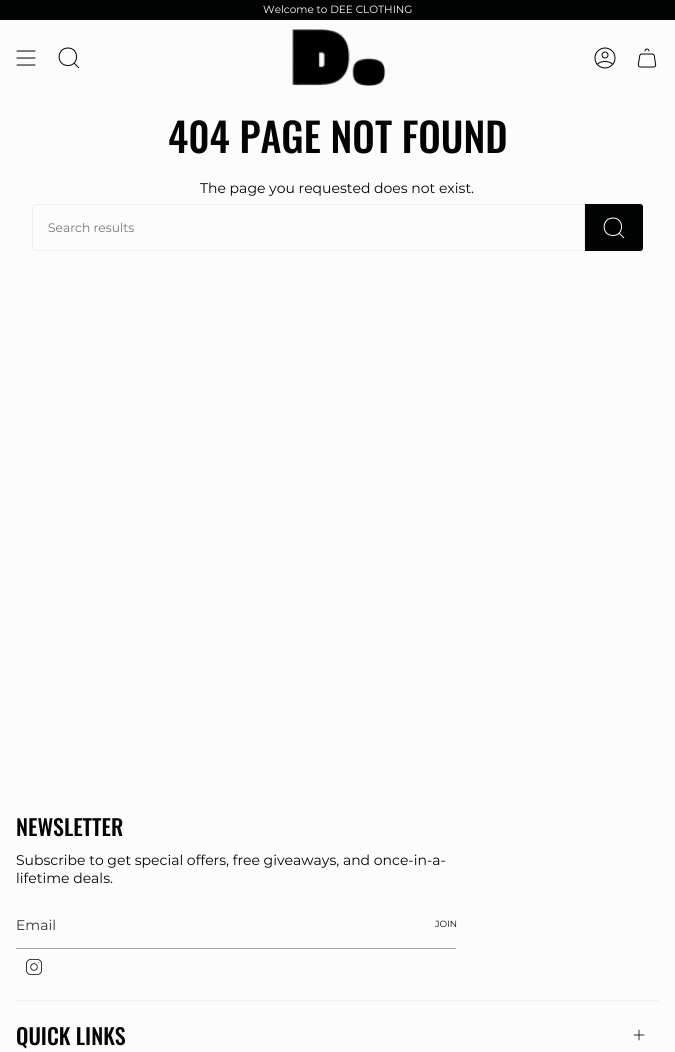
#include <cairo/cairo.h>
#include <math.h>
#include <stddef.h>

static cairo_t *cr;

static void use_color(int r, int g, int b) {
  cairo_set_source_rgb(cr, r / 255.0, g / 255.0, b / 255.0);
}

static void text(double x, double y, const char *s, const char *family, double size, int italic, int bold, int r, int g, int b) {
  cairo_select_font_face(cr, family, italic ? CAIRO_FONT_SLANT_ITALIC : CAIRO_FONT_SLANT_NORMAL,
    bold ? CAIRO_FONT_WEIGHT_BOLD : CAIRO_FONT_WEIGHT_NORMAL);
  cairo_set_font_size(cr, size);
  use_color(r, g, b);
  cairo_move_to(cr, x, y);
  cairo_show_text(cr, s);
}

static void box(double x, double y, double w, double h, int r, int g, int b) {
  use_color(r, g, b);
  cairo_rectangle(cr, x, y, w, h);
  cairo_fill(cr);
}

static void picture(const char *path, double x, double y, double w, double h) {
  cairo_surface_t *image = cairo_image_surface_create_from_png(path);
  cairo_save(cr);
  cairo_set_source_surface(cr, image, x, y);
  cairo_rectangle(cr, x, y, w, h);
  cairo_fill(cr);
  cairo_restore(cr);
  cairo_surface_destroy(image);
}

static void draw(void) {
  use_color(252, 252, 252);
  cairo_paint(cr);
  box(0, 0, 675, 20, 2, 3, 3);
  cairo_new_path(cr);
  cairo_move_to(cr, 17, 51);
  cairo_line_to(cr, 35, 51);
  cairo_move_to(cr, 17, 58);
  cairo_line_to(cr, 35, 58);
  cairo_move_to(cr, 17, 65);
  cairo_line_to(cr, 35, 65);
  use_color(0, 0, 0);
  cairo_set_line_width(cr, 1);
  cairo_set_line_cap(cr, CAIRO_LINE_CAP_ROUND);
  cairo_set_line_join(cr, CAIRO_LINE_JOIN_ROUND);
  cairo_stroke(cr);
  cairo_new_path(cr);
  cairo_move_to(cr, 68, 48);
  cairo_curve_to(cr, 79.5, 48, 79.5, 66, 67.5, 65.5);
  cairo_curve_to(cr, 56, 65, 56.5, 48, 68, 48);
  cairo_close_path(cr);
  cairo_move_to(cr, 74, 63);
  cairo_line_to(cr, 79, 68);
  cairo_set_line_cap(cr, CAIRO_LINE_CAP_BUTT);
  cairo_set_line_join(cr, CAIRO_LINE_JOIN_MITER);
  cairo_stroke(cr);
  picture("img_01.png", 292, 29, 94, 57);
  picture("img_02.png", 594, 47, 22, 22);
  picture("img_03.png", 637, 48, 20, 20);
  cairo_new_path(cr);
  cairo_move_to(cr, 35, 204.5);
  cairo_line_to(cr, 584.5, 204.5);
  cairo_line_to(cr, 584.5, 250.5);
  cairo_line_to(cr, 35, 250.5);
  cairo_curve_to(cr, 33.5, 250.5, 32.5, 249.5, 32.5, 248);
  cairo_line_to(cr, 32.5, 207);
  cairo_curve_to(cr, 32.5, 205.5, 33.5, 204.5, 35, 204.5);
  cairo_close_path(cr);
  use_color(240, 240, 240);
  cairo_stroke(cr);
  use_color(2, 3, 3);
  cairo_new_path(cr);
  cairo_move_to(cr, 585.5, 204.5);
  cairo_line_to(cr, 640, 204.5);
  cairo_curve_to(cr, 641.5, 204.5, 642.5, 205.5, 642.5, 207);
  cairo_line_to(cr, 642.5, 248);
  cairo_curve_to(cr, 642.5, 249.5, 641.5, 250.5, 640, 250.5);
  cairo_line_to(cr, 585.5, 250.5);
  cairo_close_path(cr);
  cairo_fill_preserve(cr);
  cairo_stroke(cr);
  cairo_new_path(cr);
  cairo_move_to(cr, 613, 218);
  cairo_curve_to(cr, 624.5, 218, 624.5, 236, 612.5, 235.5);
  cairo_curve_to(cr, 601, 235, 601.5, 218, 613, 218);
  cairo_close_path(cr);
  cairo_move_to(cr, 619, 233);
  cairo_line_to(cr, 624, 238);
  use_color(255, 255, 255);
  cairo_stroke(cr);
  box(16, 948, 440, 1, 164, 164, 164);
  picture("img_04.png", 26, 959, 16, 16);
  box(16, 1000, 643, 1, 240, 240, 240);
  picture("img_05.png", 633, 1029, 12, 12);
  text(263, 13, "Welcome to DEE CLOTHING", "Montserrat", 10.5, 0, 0, 255, 255, 255);
  text(168, 153, "404 PAGE NOT FOUND", "Oswald Medium", 40, 0, 0, 3, 4, 5);
  text(200, 193, "The page you requested does not exist.", "Montserrat", 14, 0, 0, 3, 4, 5);
  text(48, 232, "Search results", "Montserrat", 12.25, 0, 0, 117, 117, 117);
  text(16, 836, "NEWSLETTER", "Oswald Medium", 22, 0, 0, 3, 4, 5);
  text(16, 865, "Subscribe to get special offers, free giveaways, and once-in-a-", "Montserrat", 14, 0, 0, 3, 4, 5);
  text(16, 883, "lifetime deals.", "Montserrat", 14, 0, 0, 3, 4, 5);
  text(16, 930, "Email", "Montserrat", 14, 0, 0, 50, 50, 50);
  text(435, 927, "JOIN", "Montserrat", 9, 0, 0, 3, 4, 5);
  text(16, 1045, "QUICK LINKS", "Oswald Medium", 22, 0, 0, 3, 4, 5);
}

int main(void) {
  cairo_surface_t *surface = cairo_image_surface_create(CAIRO_FORMAT_RGB24, 675, 1052);
  cr = cairo_create(surface);
  cairo_font_options_t *options = cairo_font_options_create();
  cairo_font_options_set_hint_metrics(options, CAIRO_HINT_METRICS_OFF);
  cairo_font_options_set_hint_style(options, CAIRO_HINT_STYLE_NONE);
  cairo_set_font_options(cr, options);
  cairo_set_miter_limit(cr, 4);
  draw();
  cairo_surface_write_to_png(surface, "out.png");
  cairo_font_options_destroy(options);
  cairo_destroy(cr);
  cairo_surface_destroy(surface);
  return 0;
}
